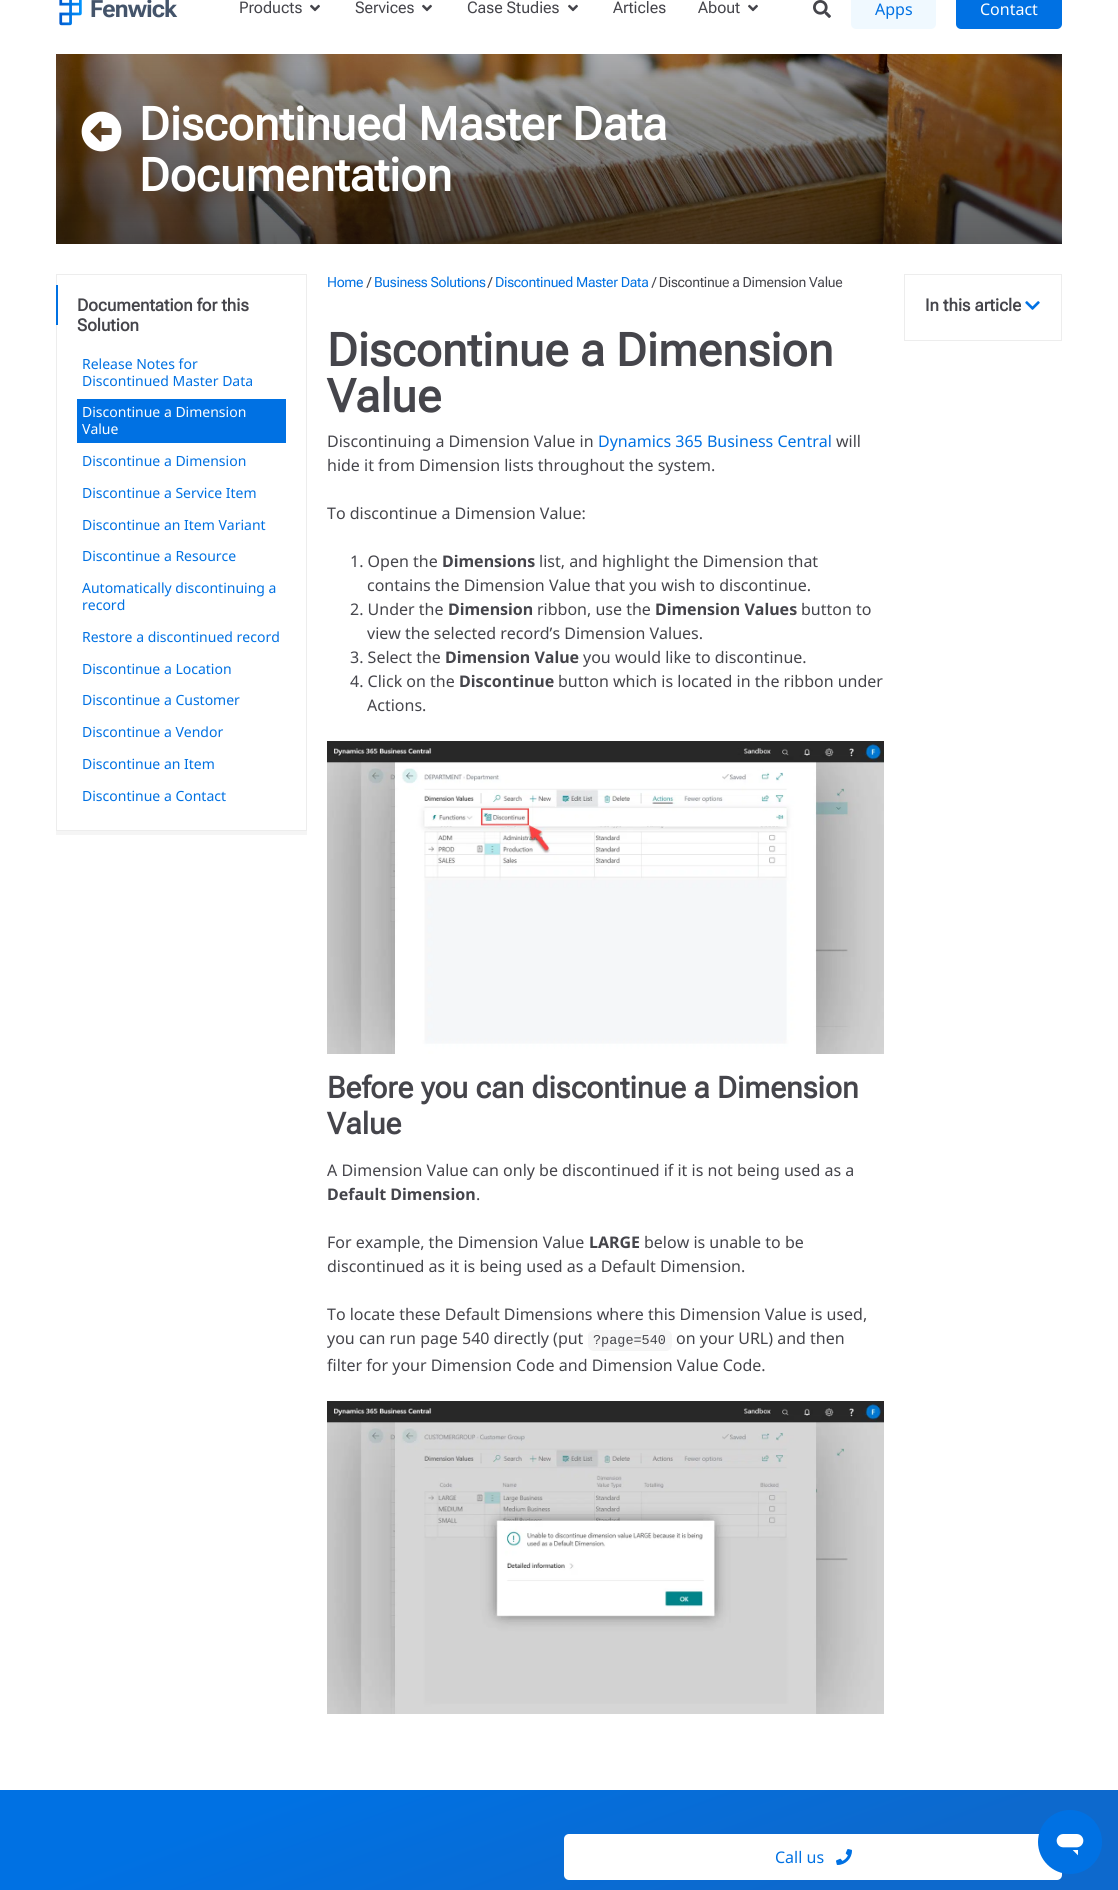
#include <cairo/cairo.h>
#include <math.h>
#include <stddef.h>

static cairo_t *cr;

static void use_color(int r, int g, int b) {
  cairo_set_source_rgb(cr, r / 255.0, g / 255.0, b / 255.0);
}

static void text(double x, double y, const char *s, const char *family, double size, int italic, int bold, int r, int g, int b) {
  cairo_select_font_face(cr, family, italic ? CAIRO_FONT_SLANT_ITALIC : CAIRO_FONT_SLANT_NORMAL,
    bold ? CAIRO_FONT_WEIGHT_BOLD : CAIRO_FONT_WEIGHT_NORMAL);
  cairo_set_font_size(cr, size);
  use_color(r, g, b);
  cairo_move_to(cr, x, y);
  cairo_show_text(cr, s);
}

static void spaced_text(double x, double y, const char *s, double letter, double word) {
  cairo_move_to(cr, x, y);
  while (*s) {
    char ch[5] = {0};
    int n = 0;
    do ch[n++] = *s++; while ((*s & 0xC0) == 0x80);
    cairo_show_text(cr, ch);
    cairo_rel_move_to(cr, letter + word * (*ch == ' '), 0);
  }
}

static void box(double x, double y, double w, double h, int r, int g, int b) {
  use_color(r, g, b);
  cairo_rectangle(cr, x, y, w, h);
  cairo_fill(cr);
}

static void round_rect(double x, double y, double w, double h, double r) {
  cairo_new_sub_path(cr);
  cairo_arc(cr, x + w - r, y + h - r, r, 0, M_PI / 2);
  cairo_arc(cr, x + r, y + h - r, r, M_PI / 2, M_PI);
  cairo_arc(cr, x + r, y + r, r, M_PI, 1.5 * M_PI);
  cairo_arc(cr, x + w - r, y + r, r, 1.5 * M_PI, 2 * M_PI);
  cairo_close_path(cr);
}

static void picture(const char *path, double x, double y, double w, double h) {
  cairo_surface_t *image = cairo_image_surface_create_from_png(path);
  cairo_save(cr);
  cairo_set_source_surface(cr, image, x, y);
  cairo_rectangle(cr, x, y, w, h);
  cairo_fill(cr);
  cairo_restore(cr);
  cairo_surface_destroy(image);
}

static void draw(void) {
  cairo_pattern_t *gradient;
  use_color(255, 255, 255);
  cairo_paint(cr);
  picture("img_01.png", 59, 0, 119, 26);
  picture("img_02.png", 310, 4, 10, 8);
  picture("img_02.png", 422, 4, 10, 8);
  picture("img_02.png", 568, 4, 10, 8);
  picture("img_02.png", 748, 4, 10, 8);
  picture("img_03.png", 813, 0, 18, 18);
  use_color(240, 249, 255);
  round_rect(851, -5, 85, 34, 5);
  cairo_fill(cr);
  use_color(0, 113, 227);
  round_rect(956, -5, 106, 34, 5);
  cairo_fill(cr);
  picture("img_04.png", 56, 54, 1006, 190);
  picture("img_05.png", 81, 111, 41, 41);
  box(56, 831, 251, 4, 245, 245, 245);
  cairo_rectangle(cr, 56.5, 274.5, 250, 556);
  use_color(237, 237, 237);
  cairo_set_line_width(cr, 1);
  cairo_stroke(cr);
  box(56, 285, 2, 40, 0, 113, 227);
  box(77, 399, 209, 44, 0, 113, 227);
  picture("img_06.png", 327, 741, 557, 313);
  use_color(245, 245, 245);
  round_rect(588, 1330, 84, 21, 6);
  cairo_fill(cr);
  picture("img_07.png", 327, 1401, 557, 313);
  cairo_rectangle(cr, 904.5, 274.5, 157, 66);
  use_color(237, 237, 237);
  cairo_stroke(cr);
  picture("img_08.png", 1025, 301, 15, 9);
  gradient = cairo_pattern_create_linear(657, 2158, 461, 1622);
  cairo_pattern_add_color_stop_rgba(gradient, 0.36, 0.051, 0.412, 0.804, 1);
  cairo_pattern_add_color_stop_rgba(gradient, 0.82, 0, 0.443, 0.89, 1);
  cairo_set_source(cr, gradient);
  cairo_pattern_destroy(gradient);
  cairo_rectangle(cr, 0, 1790, 1118, 100);
  cairo_fill(cr);
  use_color(255, 255, 255);
  round_rect(564, 1834, 498, 46, 5);
  cairo_fill(cr);
  picture("img_09.png", 836, 1849, 16, 16);
  use_color(0, 113, 227);
  cairo_arc(cr, 1070, 1842, 32, 0, 2 * M_PI);
  cairo_fill(cr);
  picture("img_10.png", 1056, 1834, 28, 22);
  text(239, 13, "Products", "Roboto Flex", 16, 0, 0, 69, 69, 75);
  text(355, 13, "Services", "Roboto Flex", 16, 0, 0, 69, 69, 75);
  text(467, 13, "Case Studies", "Roboto Flex", 16, 0, 0, 69, 69, 75);
  text(613, 13, "Articles", "Roboto Flex", 16, 0, 0, 69, 69, 75);
  text(698, 13, "About", "Roboto Flex", 16, 0, 0, 69, 69, 75);
  text(875, 15, "Apps", "Noto Sans", 16, 0, 0, 0, 113, 227);
  text(980, 15, "Contact", "Noto Sans", 16, 0, 0, 255, 255, 255);
  text(139, 140, "Discontinued Master Data", "Roboto Flex", 46, 0, 1, 255, 255, 255);
  text(139, 191, "Documentation", "Roboto Flex", 46, 0, 1, 255, 255, 255);
  text(77, 311, "Documentation for this", "Roboto Flex", 17, 0, 1, 69, 69, 75);
  text(77, 331, "Solution", "Roboto Flex", 17, 0, 1, 69, 69, 75);
  text(82, 369, "Release Notes for", "Noto Sans", 14, 0, 0, 0, 113, 227);
  text(82, 386, "Discontinued Master Data", "Noto Sans", 14, 0, 0, 0, 113, 227);
  text(82, 417, "Discontinue a Dimension", "Noto Sans", 14, 0, 0, 255, 255, 255);
  text(82, 434, "Value", "Noto Sans", 14, 0, 0, 255, 255, 255);
  text(82, 466, "Discontinue a Dimension", "Noto Sans", 14, 0, 0, 0, 113, 227);
  text(82, 498, "Discontinue a Service Item", "Noto Sans", 14, 0, 0, 0, 113, 227);
  text(82, 530, "Discontinue an Item Variant", "Noto Sans", 14, 0, 0, 0, 113, 227);
  text(82, 561, "Discontinue a Resource", "Noto Sans", 14, 0, 0, 0, 113, 227);
  text(82, 593, "Automatically discontinuing a", "Noto Sans", 14, 0, 0, 0, 113, 227);
  text(82, 610, "record", "Noto Sans", 14, 0, 0, 0, 113, 227);
  text(82, 642, "Restore a discontinued record", "Noto Sans", 14, 0, 0, 0, 113, 227);
  text(82, 674, "Discontinue a Location", "Noto Sans", 14, 0, 0, 0, 113, 227);
  text(82, 705, "Discontinue a Customer", "Noto Sans", 14, 0, 0, 0, 113, 227);
  text(82, 737, "Discontinue a Vendor", "Noto Sans", 14, 0, 0, 0, 113, 227);
  text(82, 769, "Discontinue an Item", "Noto Sans", 14, 0, 0, 0, 113, 227);
  text(82, 801, "Discontinue a Contact", "Noto Sans", 14, 0, 0, 0, 113, 227);
  cairo_select_font_face(cr, "Roboto Flex", CAIRO_FONT_SLANT_NORMAL, CAIRO_FONT_WEIGHT_NORMAL);
  spaced_text(327, 287, "Home", -0.3, 0);
  use_color(69, 69, 75);
  spaced_text(367, 287, "/", -0.3, 0);
  use_color(0, 113, 227);
  spaced_text(374, 287, "Business Solutions", -0.3, 0);
  use_color(69, 69, 75);
  spaced_text(488, 287, "/", -0.3, 0);
  use_color(0, 113, 227);
  spaced_text(495, 287, "Discontinued Master Data", -0.3, 0);
  use_color(69, 69, 75);
  spaced_text(652, 287, "/ Discontinue a Dimension Value", -0.3, 0);
  text(327, 366, "Discontinue a Dimension", "Roboto Flex", 46, 0, 1, 69, 69, 75);
  text(327, 412, "Value", "Roboto Flex", 46, 0, 1, 69, 69, 75);
  text(327, 447, "Discontinuing a Dimension Value in", "Noto Sans", 16, 0, 0, 69, 69, 75);
  text(598, 447, "Dynamics 365 Business Central", "Noto Sans", 16, 0, 0, 0, 113, 227);
  text(836, 447, "will", "Noto Sans", 16, 0, 0, 69, 69, 75);
  text(327, 471, "hide it from Dimension lists throughout the system.", "Noto Sans", 16, 0, 0, 69, 69, 75);
  text(327, 519, "To discontinue a Dimension Value:", "Noto Sans", 16, 0, 0, 69, 69, 75);
  text(350, 567, "1. Open the", "Noto Sans", 16, 0, 0, 69, 69, 75);
  text(442, 567, "Dimensions", "Noto Sans", 16, 0, 1, 69, 69, 75);
  text(539, 567, "list, and highlight the Dimension that", "Noto Sans", 16, 0, 0, 69, 69, 75);
  text(367, 591, "contains the Dimension Value that you wish to discontinue.", "Noto Sans", 16, 0, 0, 69, 69, 75);
  text(350, 615, "2. Under the", "Noto Sans", 16, 0, 0, 69, 69, 75);
  text(448, 615, "Dimension", "Noto Sans", 16, 0, 1, 69, 69, 75);
  text(537, 615, "ribbon, use the", "Noto Sans", 16, 0, 0, 69, 69, 75);
  text(655, 615, "Dimension Values", "Noto Sans", 16, 0, 1, 69, 69, 75);
  text(801, 615, "button to", "Noto Sans", 16, 0, 0, 69, 69, 75);
  text(367, 639, "view the selected record’s Dimension Values.", "Noto Sans", 16, 0, 0, 69, 69, 75);
  text(350, 663, "3. Select the", "Noto Sans", 16, 0, 0, 69, 69, 75);
  text(445, 663, "Dimension Value", "Noto Sans", 16, 0, 1, 69, 69, 75);
  text(583, 663, "you would like to discontinue.", "Noto Sans", 16, 0, 0, 69, 69, 75);
  text(350, 687, "4. Click on the", "Noto Sans", 16, 0, 0, 69, 69, 75);
  text(459, 687, "Discontinue", "Noto Sans", 16, 0, 1, 69, 69, 75);
  text(558, 687, "button which is located in the ribbon under", "Noto Sans", 16, 0, 0, 69, 69, 75);
  text(367, 711, "Actions.", "Noto Sans", 16, 0, 0, 69, 69, 75);
  text(327, 1098, "Before you can discontinue a Dimension", "Roboto Flex", 30, 0, 1, 69, 69, 75);
  text(327, 1134, "Value", "Roboto Flex", 30, 0, 1, 69, 69, 75);
  text(327, 1176, "A Dimension Value can only be discontinued if it is not being used as a", "Noto Sans", 16, 0, 0, 69, 69, 75);
  text(327, 1200, "Default Dimension", "Noto Sans", 16, 0, 1, 69, 69, 75);
  text(476, 1200, ".", "Noto Sans", 16, 0, 0, 69, 69, 75);
  text(327, 1248, "For example, the Dimension Value", "Noto Sans", 16, 0, 0, 69, 69, 75);
  text(589, 1248, "LARGE", "Noto Sans", 16, 0, 1, 69, 69, 75);
  text(644, 1248, "below is unable to be", "Noto Sans", 16, 0, 0, 69, 69, 75);
  text(327, 1272, "discontinued as it is being used as a Default Dimension.", "Noto Sans", 16, 0, 0, 69, 69, 75);
  text(327, 1320, "To locate these Default Dimensions where this Dimension Value is used,", "Noto Sans", 16, 0, 0, 69, 69, 75);
  text(327, 1344, "you can run page 540 directly (put", "Noto Sans", 16, 0, 0, 69, 69, 75);
  text(593, 1344, "?page=540", "Liberation Mono", 13.5, 0, 0, 69, 69, 75);
  text(676, 1344, "on your URL) and then", "Noto Sans", 16, 0, 0, 69, 69, 75);
  text(327, 1371, "filter for your Dimension Code and Dimension Value Code.", "Noto Sans", 16, 0, 0, 69, 69, 75);
  text(925, 311, "In this article", "Roboto Flex", 17, 0, 1, 69, 69, 75);
  text(775, 1863, "Call us", "Noto Sans", 16, 0, 0, 0, 113, 227);
}

int main(void) {
  cairo_surface_t *surface = cairo_image_surface_create(CAIRO_FORMAT_RGB24, 1118, 1890);
  cr = cairo_create(surface);
  cairo_font_options_t *options = cairo_font_options_create();
  cairo_font_options_set_hint_metrics(options, CAIRO_HINT_METRICS_OFF);
  cairo_font_options_set_hint_style(options, CAIRO_HINT_STYLE_NONE);
  cairo_set_font_options(cr, options);
  cairo_set_miter_limit(cr, 4);
  draw();
  cairo_surface_write_to_png(surface, "out.png");
  cairo_font_options_destroy(options);
  cairo_destroy(cr);
  cairo_surface_destroy(surface);
  return 0;
}
